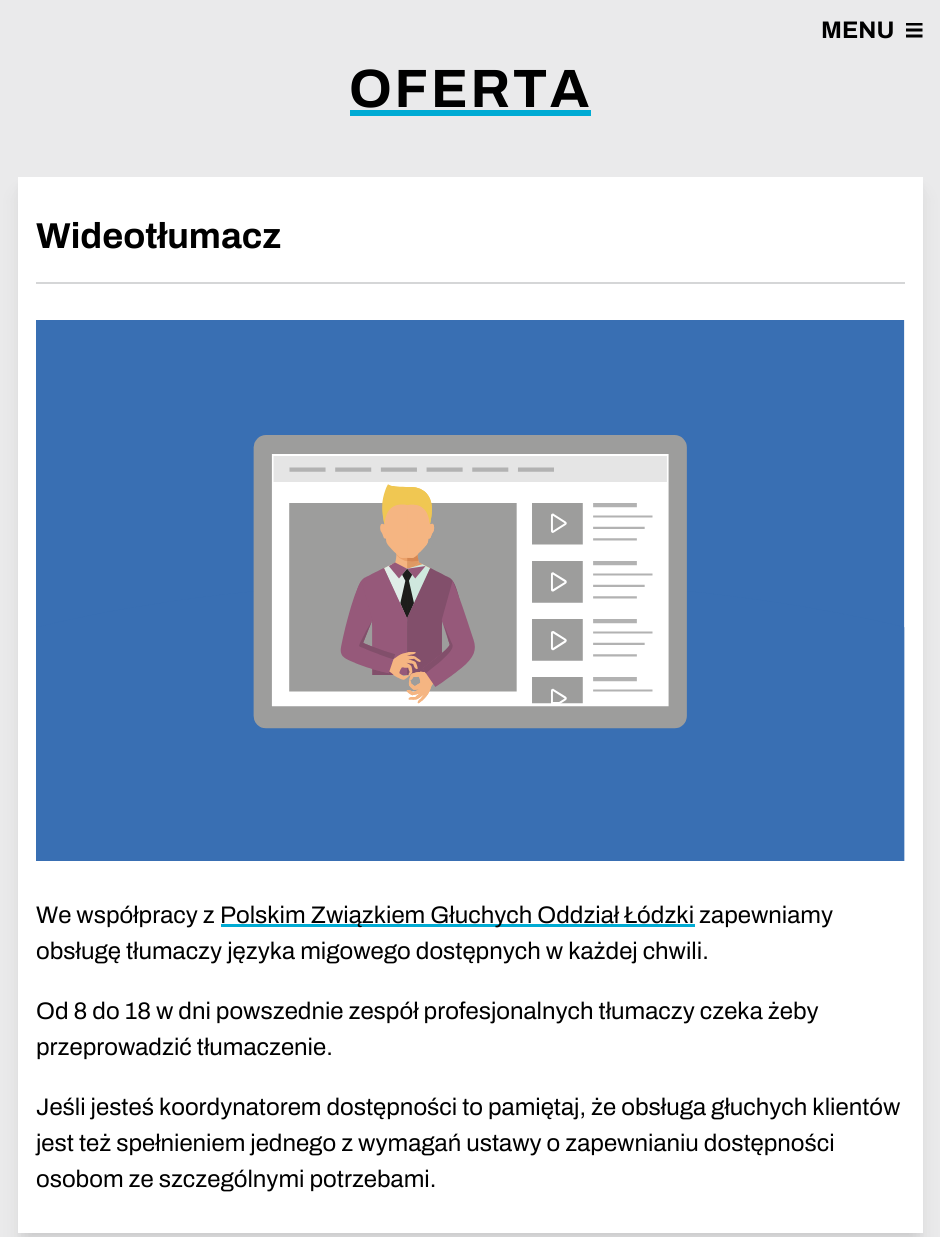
#include <cairo/cairo.h>
#include <math.h>
#include <stddef.h>

static cairo_t *cr;

static void use_color(int r, int g, int b) {
  cairo_set_source_rgb(cr, r / 255.0, g / 255.0, b / 255.0);
}

static void text(double x, double y, const char *s, const char *family, double size, int italic, int bold, int r, int g, int b) {
  cairo_select_font_face(cr, family, italic ? CAIRO_FONT_SLANT_ITALIC : CAIRO_FONT_SLANT_NORMAL,
    bold ? CAIRO_FONT_WEIGHT_BOLD : CAIRO_FONT_WEIGHT_NORMAL);
  cairo_set_font_size(cr, size);
  use_color(r, g, b);
  cairo_move_to(cr, x, y);
  cairo_show_text(cr, s);
}

static void spaced_text(double x, double y, const char *s, double letter, double word) {
  cairo_move_to(cr, x, y);
  while (*s) {
    char ch[5] = {0};
    int n = 0;
    do ch[n++] = *s++; while ((*s & 0xC0) == 0x80);
    cairo_show_text(cr, ch);
    cairo_rel_move_to(cr, letter + word * (*ch == ' '), 0);
  }
}

static void box(double x, double y, double w, double h, int r, int g, int b) {
  use_color(r, g, b);
  cairo_rectangle(cr, x, y, w, h);
  cairo_fill(cr);
}

static void round_rect(double x, double y, double w, double h, double r) {
  cairo_new_sub_path(cr);
  cairo_arc(cr, x + w - r, y + h - r, r, 0, M_PI / 2);
  cairo_arc(cr, x + r, y + h - r, r, M_PI / 2, M_PI);
  cairo_arc(cr, x + r, y + r, r, M_PI, 1.5 * M_PI);
  cairo_arc(cr, x + w - r, y + r, r, 1.5 * M_PI, 2 * M_PI);
  cairo_close_path(cr);
}

static void shadow(double x, double y, double w, double h, double r, double blur, double alpha) {
  cairo_push_group_with_content(cr, CAIRO_CONTENT_ALPHA);
  cairo_set_operator(cr, CAIRO_OPERATOR_SOURCE);
  for (int i = 15; i >= -15 && fmin(w, h) + blur * i / 3 > 0; i -= 2) {
    double e = blur * i / 6;
    cairo_set_source_rgba(cr, 0, 0, 0, alpha * erfc((i - 1) / 8.5) / 2);
    round_rect(x - e, y - e, w + 2 * e, h + 2 * e, fmax(0, fmin(r + e + blur * .6, fmin(w, h) / 2 + e)));
    cairo_fill(cr);
  }
  cairo_pattern_t *soft = cairo_pop_group(cr);
  cairo_mask(cr, soft);
  cairo_pattern_destroy(soft);
}

static void picture(const char *path, double x, double y, double w, double h) {
  cairo_surface_t *image = cairo_image_surface_create_from_png(path);
  cairo_save(cr);
  cairo_set_source_surface(cr, image, x, y);
  cairo_rectangle(cr, x, y, w, h);
  cairo_fill(cr);
  cairo_restore(cr);
  cairo_surface_destroy(image);
}

static void draw(void) {
  use_color(234, 234, 235);
  cairo_paint(cr);
  cairo_save(cr);
  cairo_rectangle(cr, 906, 23, 17, 15);
  cairo_clip(cr);
  cairo_new_path(cr);
  cairo_move_to(cr, 906, 24);
  cairo_line_to(cr, 922.5, 24);
  cairo_move_to(cr, 906, 30);
  cairo_line_to(cr, 922.5, 30);
  cairo_move_to(cr, 906, 36);
  cairo_line_to(cr, 922.5, 36);
  use_color(0, 0, 0);
  cairo_set_line_width(cr, 3);
  cairo_stroke(cr);
  cairo_restore(cr);
  box(350, 110, 241, 6, 0, 171, 212);
  use_color(0, 0, 0);
  shadow(21, 186, 899, 1050, 0, 4.5, 0.05);
  shadow(23, 197, 895, 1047, 0, 11, 0.1);
  box(18, 177, 905, 1056, 255, 255, 255);
  box(36, 282, 869, 2, 213, 214, 215);
  picture("img_01.png", 36, 320, 869, 541);
  box(221, 924, 474, 3, 0, 171, 212);
  text(821, 38, "MENU", "Archivo", 24, 0, 1, 0, 0, 0);
  cairo_set_font_size(cr, 54);
  spaced_text(349, 107, "OFERTA", 2.75, 0);
  text(36, 248, "Wideotłumacz", "Archivo", 36, 0, 1, 0, 0, 0);
  text(36, 923, "We współpracy z", "Archivo", 24, 0, 0, 0, 0, 0);
  text(220, 923, "Polskim Związkiem Głuchych Oddział Łódzki zapewniamy", "Archivo", 24, 0, 0, 0, 0, 0);
  text(36, 959, "obsługę tłumaczy języka migowego dostępnych w każdej chwili.", "Archivo", 24, 0, 0, 0, 0, 0);
  text(36, 1019, "Od 8 do 18 w dni powszednie zespół profesjonalnych tłumaczy czeka żeby", "Archivo", 24, 0, 0, 0, 0, 0);
  text(36, 1055, "przeprowadzić tłumaczenie.", "Archivo", 24, 0, 0, 0, 0, 0);
  text(36, 1115, "Jeśli jesteś koordynatorem dostępności to pamiętaj, że obsługa głuchych klientów", "Archivo", 24, 0, 0, 0, 0, 0);
  text(36, 1151, "jest też spełnieniem jednego z wymagań ustawy o zapewnianiu dostępności", "Archivo", 24, 0, 0, 0, 0, 0);
  text(36, 1187, "osobom ze szczególnymi potrzebami.", "Archivo", 24, 0, 0, 0, 0, 0);
}

int main(void) {
  cairo_surface_t *surface = cairo_image_surface_create(CAIRO_FORMAT_RGB24, 940, 1237);
  cr = cairo_create(surface);
  cairo_font_options_t *options = cairo_font_options_create();
  cairo_font_options_set_hint_metrics(options, CAIRO_HINT_METRICS_OFF);
  cairo_font_options_set_hint_style(options, CAIRO_HINT_STYLE_NONE);
  cairo_set_font_options(cr, options);
  cairo_set_miter_limit(cr, 4);
  draw();
  cairo_surface_write_to_png(surface, "out.png");
  cairo_font_options_destroy(options);
  cairo_destroy(cr);
  cairo_surface_destroy(surface);
  return 0;
}
